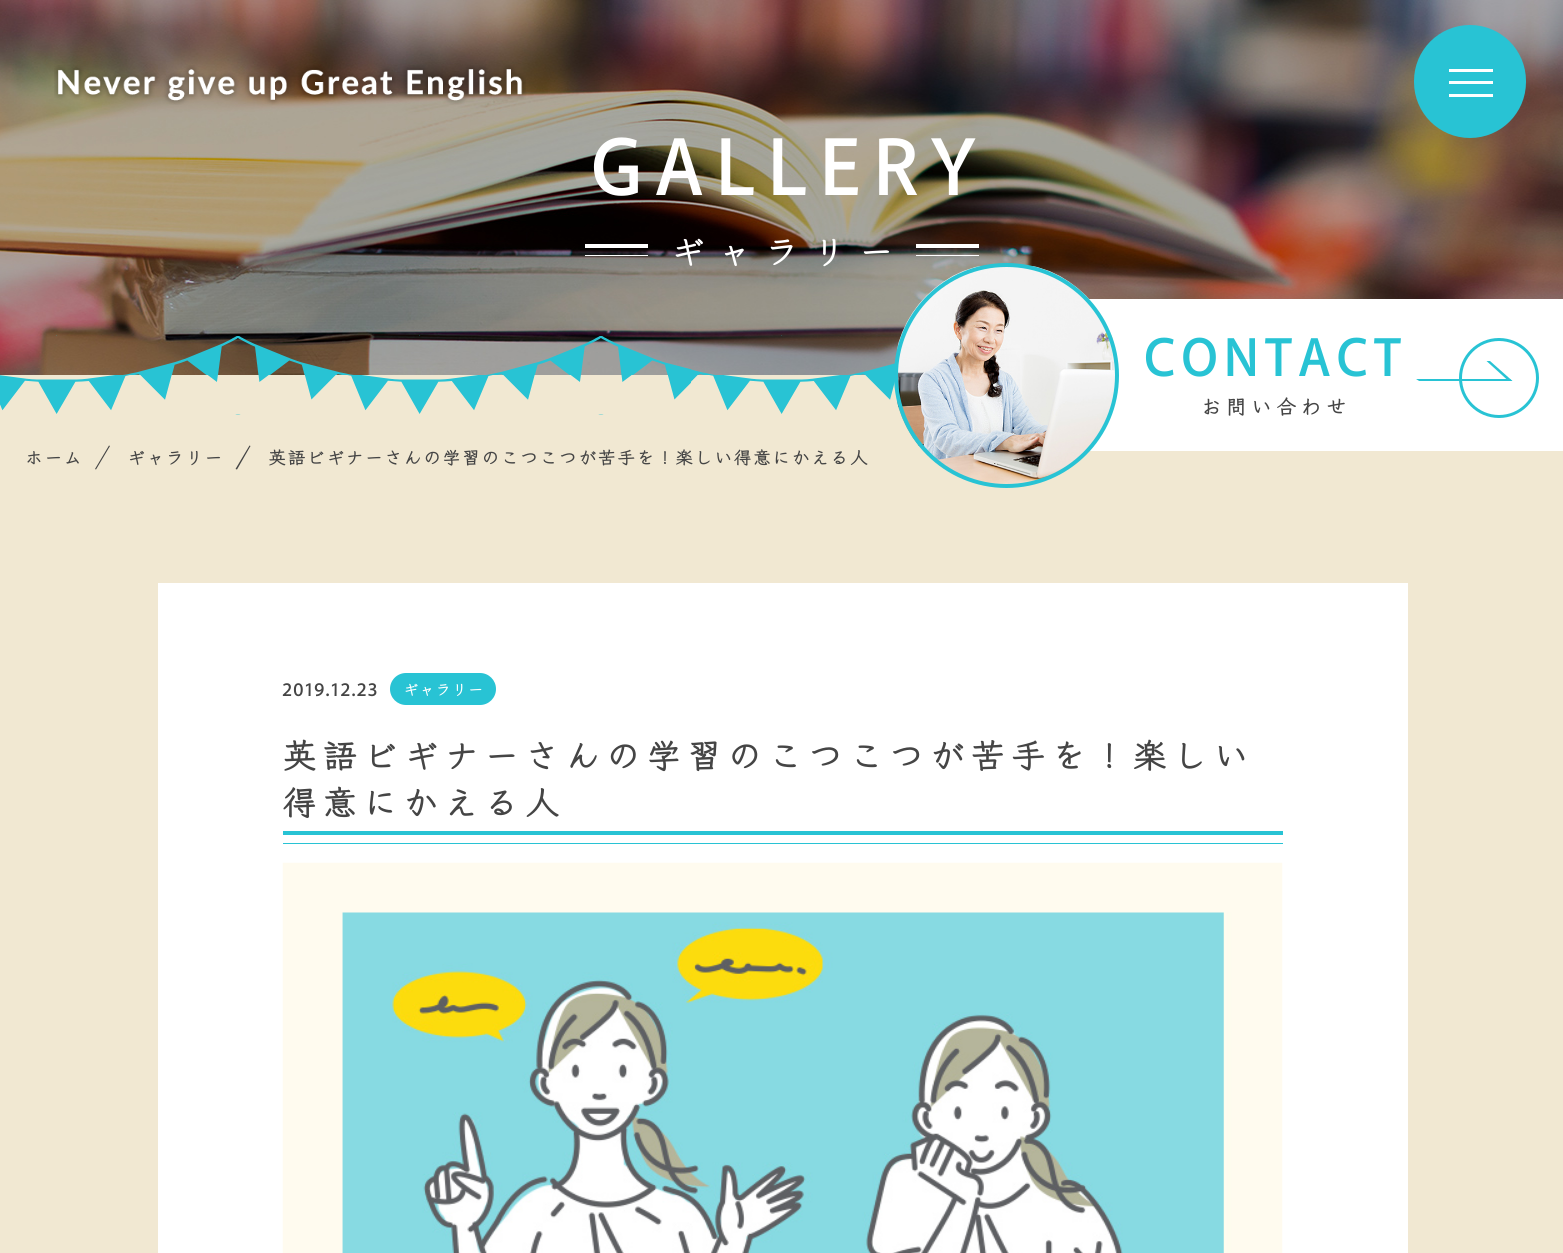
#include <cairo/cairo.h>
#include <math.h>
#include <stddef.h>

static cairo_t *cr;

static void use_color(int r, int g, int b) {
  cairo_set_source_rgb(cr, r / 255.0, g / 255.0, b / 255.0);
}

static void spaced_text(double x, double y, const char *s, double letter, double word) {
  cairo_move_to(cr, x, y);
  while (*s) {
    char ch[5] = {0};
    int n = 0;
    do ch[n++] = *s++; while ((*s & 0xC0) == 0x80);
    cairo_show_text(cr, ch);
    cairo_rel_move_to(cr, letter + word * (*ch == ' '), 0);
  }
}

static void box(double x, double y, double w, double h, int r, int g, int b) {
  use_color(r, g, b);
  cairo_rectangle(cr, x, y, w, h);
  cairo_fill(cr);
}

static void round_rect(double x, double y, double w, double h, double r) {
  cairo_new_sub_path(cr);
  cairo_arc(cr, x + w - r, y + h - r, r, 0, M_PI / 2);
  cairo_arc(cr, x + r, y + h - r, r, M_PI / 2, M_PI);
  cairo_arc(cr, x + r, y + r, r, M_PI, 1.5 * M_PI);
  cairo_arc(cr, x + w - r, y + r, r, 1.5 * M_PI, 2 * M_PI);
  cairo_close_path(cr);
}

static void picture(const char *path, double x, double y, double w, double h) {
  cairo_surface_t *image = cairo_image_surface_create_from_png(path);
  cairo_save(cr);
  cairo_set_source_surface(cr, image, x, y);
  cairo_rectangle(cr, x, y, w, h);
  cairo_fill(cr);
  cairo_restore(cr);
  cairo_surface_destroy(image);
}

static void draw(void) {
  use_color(241, 232, 210);
  cairo_paint(cr);
  picture("img_02.png", 0, 0, 1563, 375);
  picture("img_01.png", 54, 65, 472, 40);
  use_color(40, 195, 212);
  round_rect(1414, 25, 112, 113, 56);
  cairo_fill(cr);
  box(1449, 69, 44, 3, 255, 255, 255);
  box(1449, 81, 44, 3, 255, 255, 255);
  box(1449, 94, 44, 3, 255, 255, 255);
  box(585, 244, 63, 4, 255, 255, 255);
  box(585, 255, 63, 1, 255, 255, 255);
  box(916, 244, 63, 4, 255, 255, 255);
  box(916, 255, 63, 1, 255, 255, 255);
  picture("img_03.png", 0, 335, 895, 80);
  box(1089, 299, 474, 152, 255, 255, 255);
  picture("img_04.png", 897, 266, 218, 218);
  cairo_arc(cr, 1006.5, 375.5, 110.5, 0, 2 * M_PI);
  use_color(40, 195, 212);
  cairo_set_line_width(cr, 4);
  cairo_stroke(cr);
  cairo_new_path(cr);
  cairo_move_to(cr, 1486.5, 361);
  cairo_line_to(cr, 1490, 361);
  cairo_line_to(cr, 1512.5, 381);
  cairo_line_to(cr, 1508.5, 381);
  cairo_close_path(cr);
  cairo_fill(cr);
  cairo_new_path(cr);
  cairo_move_to(cr, 1416, 379);
  cairo_line_to(cr, 1510, 379);
  cairo_line_to(cr, 1512, 381);
  cairo_line_to(cr, 1419, 381);
  cairo_close_path(cr);
  cairo_fill(cr);
  cairo_arc(cr, 1499, 378, 38.5, 0, 2 * M_PI);
  cairo_set_line_width(cr, 3);
  cairo_stroke(cr);
  use_color(69, 69, 69);
  cairo_new_path(cr);
  cairo_move_to(cr, 109, 445.5);
  cairo_line_to(cr, 110, 446);
  cairo_line_to(cr, 96, 469.5);
  cairo_line_to(cr, 95, 469);
  cairo_close_path(cr);
  cairo_fill(cr);
  cairo_new_path(cr);
  cairo_move_to(cr, 249.5, 445.5);
  cairo_line_to(cr, 250.5, 446);
  cairo_line_to(cr, 237, 469.5);
  cairo_line_to(cr, 235.5, 469);
  cairo_close_path(cr);
  cairo_fill(cr);
  box(158, 583, 1250, 670, 255, 255, 255);
  use_color(40, 195, 212);
  round_rect(390, 673, 106, 32, 16);
  cairo_fill(cr);
  box(283, 831, 1000, 4, 40, 195, 212);
  box(283, 843, 1000, 1, 40, 195, 212);
  picture("img_05.png", 282, 862, 1001, 391);
  cairo_select_font_face(cr, "Murecho", CAIRO_FONT_SLANT_NORMAL, CAIRO_FONT_WEIGHT_BOLD);
  cairo_set_font_size(cr, 75);
  use_color(255, 255, 255);
  spaced_text(591, 195, "GALLERY", 15, 0);
  cairo_select_font_face(cr, "Klee One", CAIRO_FONT_SLANT_NORMAL, CAIRO_FONT_WEIGHT_BOLD);
  cairo_set_font_size(cr, 33.75);
  spaced_text(670, 264, "ギャラリー", 13.5, 0);
  cairo_select_font_face(cr, "Murecho", CAIRO_FONT_SLANT_NORMAL, CAIRO_FONT_WEIGHT_BOLD);
  cairo_set_font_size(cr, 50);
  use_color(40, 195, 212);
  spaced_text(1144, 376, "CONTACT", 7.5, 0);
  cairo_select_font_face(cr, "Klee One", CAIRO_FONT_SLANT_NORMAL, CAIRO_FONT_WEIGHT_BOLD);
  cairo_set_font_size(cr, 20);
  use_color(69, 69, 69);
  spaced_text(1201, 414, "お問い合わせ", 5, 0);
  cairo_set_font_size(cr, 17.5);
  spaced_text(25, 464, "ホーム", 1.9, 0);
  spaced_text(127, 464, "ギャラリー", 1.9, 0);
  spaced_text(268, 464, "英語ビギナーさんの学習のこつこつが苦手を！楽しい得意にかえる人", 1.9, 0);
  cairo_select_font_face(cr, "Murecho", CAIRO_FONT_SLANT_NORMAL, CAIRO_FONT_WEIGHT_BOLD);
  spaced_text(282, 696, "2019.12.23", 1.25, 0);
  cairo_select_font_face(cr, "Klee One", CAIRO_FONT_SLANT_NORMAL, CAIRO_FONT_WEIGHT_BOLD);
  cairo_set_font_size(cr, 15);
  use_color(255, 255, 255);
  spaced_text(403, 695, "ギャラリー", 1.25, 0);
  cairo_set_font_size(cr, 33.75);
  use_color(69, 69, 69);
  spaced_text(282, 768, "英語ビギナーさんの学習のこつこつが苦手を！楽しい", 6.75, 0);
  spaced_text(282, 815, "得意にかえる人", 6.75, 0);
}

int main(void) {
  cairo_surface_t *surface = cairo_image_surface_create(CAIRO_FORMAT_RGB24, 1563, 1253);
  cr = cairo_create(surface);
  cairo_font_options_t *options = cairo_font_options_create();
  cairo_font_options_set_hint_metrics(options, CAIRO_HINT_METRICS_OFF);
  cairo_font_options_set_hint_style(options, CAIRO_HINT_STYLE_NONE);
  cairo_set_font_options(cr, options);
  cairo_set_miter_limit(cr, 4);
  draw();
  cairo_surface_write_to_png(surface, "out.png");
  cairo_font_options_destroy(options);
  cairo_destroy(cr);
  cairo_surface_destroy(surface);
  return 0;
}
